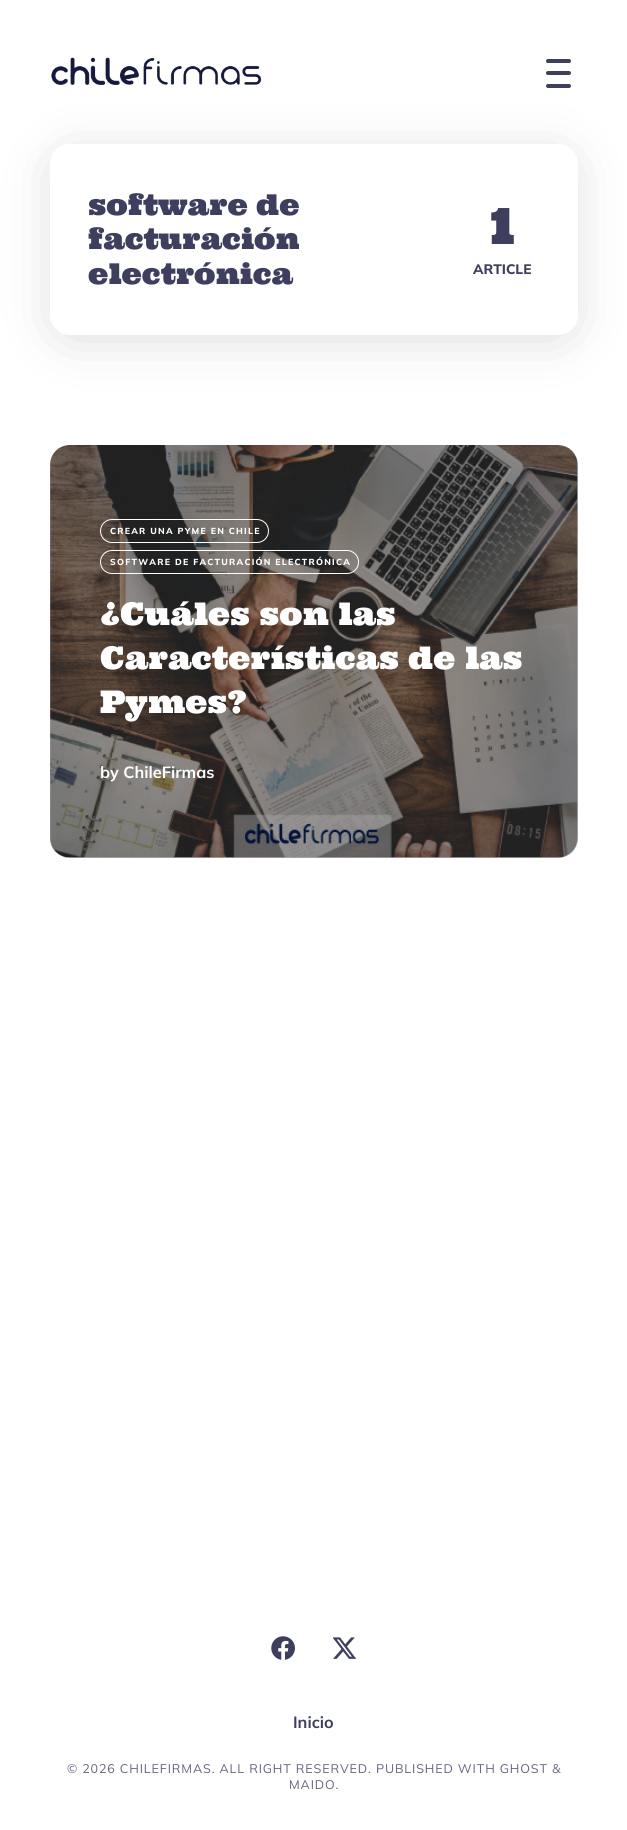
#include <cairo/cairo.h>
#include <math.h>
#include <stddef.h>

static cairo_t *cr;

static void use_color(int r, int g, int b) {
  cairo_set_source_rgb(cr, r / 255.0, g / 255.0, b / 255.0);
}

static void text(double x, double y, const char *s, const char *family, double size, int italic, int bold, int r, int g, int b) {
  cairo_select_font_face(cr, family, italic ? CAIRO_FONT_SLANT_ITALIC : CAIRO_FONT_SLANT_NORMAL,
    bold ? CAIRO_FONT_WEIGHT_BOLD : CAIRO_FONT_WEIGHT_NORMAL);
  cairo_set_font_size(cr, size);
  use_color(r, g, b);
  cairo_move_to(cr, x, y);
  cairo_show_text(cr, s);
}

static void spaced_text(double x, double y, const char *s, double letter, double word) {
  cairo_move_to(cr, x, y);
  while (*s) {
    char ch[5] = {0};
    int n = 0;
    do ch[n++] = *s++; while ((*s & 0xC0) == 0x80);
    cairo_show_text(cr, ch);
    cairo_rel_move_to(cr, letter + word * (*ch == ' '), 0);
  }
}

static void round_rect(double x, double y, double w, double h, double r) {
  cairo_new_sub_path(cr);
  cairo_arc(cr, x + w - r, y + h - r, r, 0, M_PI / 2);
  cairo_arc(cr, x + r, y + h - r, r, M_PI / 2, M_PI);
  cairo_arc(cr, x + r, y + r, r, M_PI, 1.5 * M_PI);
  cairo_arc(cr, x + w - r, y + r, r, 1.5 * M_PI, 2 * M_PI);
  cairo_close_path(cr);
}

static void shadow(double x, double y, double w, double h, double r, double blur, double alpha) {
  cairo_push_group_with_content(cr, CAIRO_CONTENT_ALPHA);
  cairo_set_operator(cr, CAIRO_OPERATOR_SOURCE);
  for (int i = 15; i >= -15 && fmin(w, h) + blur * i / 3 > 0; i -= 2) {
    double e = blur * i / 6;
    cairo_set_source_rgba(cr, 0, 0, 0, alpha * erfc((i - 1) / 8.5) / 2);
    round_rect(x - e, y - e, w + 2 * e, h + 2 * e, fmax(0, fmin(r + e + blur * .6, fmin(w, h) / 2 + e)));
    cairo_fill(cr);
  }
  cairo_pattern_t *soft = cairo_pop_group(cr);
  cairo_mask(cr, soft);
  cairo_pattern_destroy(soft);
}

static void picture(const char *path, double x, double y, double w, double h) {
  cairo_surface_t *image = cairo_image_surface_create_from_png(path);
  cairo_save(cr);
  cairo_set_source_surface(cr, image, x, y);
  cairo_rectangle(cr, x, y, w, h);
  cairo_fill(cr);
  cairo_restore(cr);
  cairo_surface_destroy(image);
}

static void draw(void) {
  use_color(255, 255, 255);
  cairo_paint(cr);
  picture("img_01.png", 51, 57, 211, 28);
  use_color(62, 62, 95);
  round_rect(546, 59, 25, 4, 2);
  cairo_fill(cr);
  round_rect(546, 71, 25, 4, 2);
  cairo_fill(cr);
  use_color(0, 0, 0);
  shadow(63, 163, 502, 166, 8, 28, 0.2);
  use_color(62, 62, 95);
  round_rect(546, 84, 25, 4, 2);
  cairo_fill(cr);
  use_color(255, 255, 255);
  round_rect(50, 144, 528, 191, 20);
  cairo_fill(cr);
  picture("img_02.png", 50, 445, 528, 413);
  cairo_set_source_rgba(cr, 0.059, 0.059, 0.078, 0.35);
  round_rect(50, 445, 528, 413, 20);
  cairo_fill(cr);
  round_rect(100.5, 519.5, 168, 23, 11.5);
  use_color(255, 255, 255);
  cairo_set_line_width(cr, 1);
  cairo_stroke(cr);
  round_rect(100.5, 550.5, 258, 23, 11.5);
  cairo_stroke(cr);
  picture("img_03.png", 271, 1636, 24, 24);
  picture("img_04.png", 333, 1637, 23, 22);
  text(88, 215, "software de", "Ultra", 28.75, 0, 0, 62, 62, 95);
  text(88, 249, "facturación", "Ultra", 28.75, 0, 0, 62, 62, 95);
  text(88, 284, "electrónica", "Ultra", 28.75, 0, 0, 62, 62, 95);
  text(490, 244, "1", "Ultra", 50, 0, 0, 62, 62, 95);
  text(473, 274, "ARTICLE", "Mulish ExtraBold", 13.75, 0, 0, 62, 62, 95);
  cairo_set_font_size(cr, 8.75);
  use_color(255, 255, 255);
  spaced_text(110, 534, "CREAR UNA PYME EN CHILE", 1.25, 0);
  spaced_text(110, 565, "SOFTWARE DE FACTURACIÓN ELECTRÓNICA", 1.25, 0);
  text(100, 625, "¿Cuáles son las", "Ultra", 31.25, 0, 0, 255, 255, 255);
  text(100, 669, "Características de las", "Ultra", 31.25, 0, 0, 255, 255, 255);
  text(100, 713, "Pymes?", "Ultra", 31.25, 0, 0, 255, 255, 255);
  text(100, 778, "by ChileFirmas", "Mulish", 16.25, 0, 1, 255, 255, 255);
  text(293, 1728, "Inicio", "Mulish", 16.25, 0, 1, 62, 62, 95);
  cairo_select_font_face(cr, "Mulish", CAIRO_FONT_SLANT_NORMAL, CAIRO_FONT_WEIGHT_NORMAL);
  cairo_set_font_size(cr, 12.5);
  use_color(101, 101, 127);
  spaced_text(67, 1773, "© 2026 CHILEFIRMAS. ALL RIGHT RESERVED. PUBLISHED WITH GHOST &", 0.88, 0);
  spaced_text(289, 1789, "MAIDO.", 0.88, 0);
}

int main(void) {
  cairo_surface_t *surface = cairo_image_surface_create(CAIRO_FORMAT_RGB24, 627, 1830);
  cr = cairo_create(surface);
  cairo_font_options_t *options = cairo_font_options_create();
  cairo_font_options_set_hint_metrics(options, CAIRO_HINT_METRICS_OFF);
  cairo_font_options_set_hint_style(options, CAIRO_HINT_STYLE_NONE);
  cairo_set_font_options(cr, options);
  cairo_set_miter_limit(cr, 4);
  draw();
  cairo_surface_write_to_png(surface, "out.png");
  cairo_font_options_destroy(options);
  cairo_destroy(cr);
  cairo_surface_destroy(surface);
  return 0;
}
